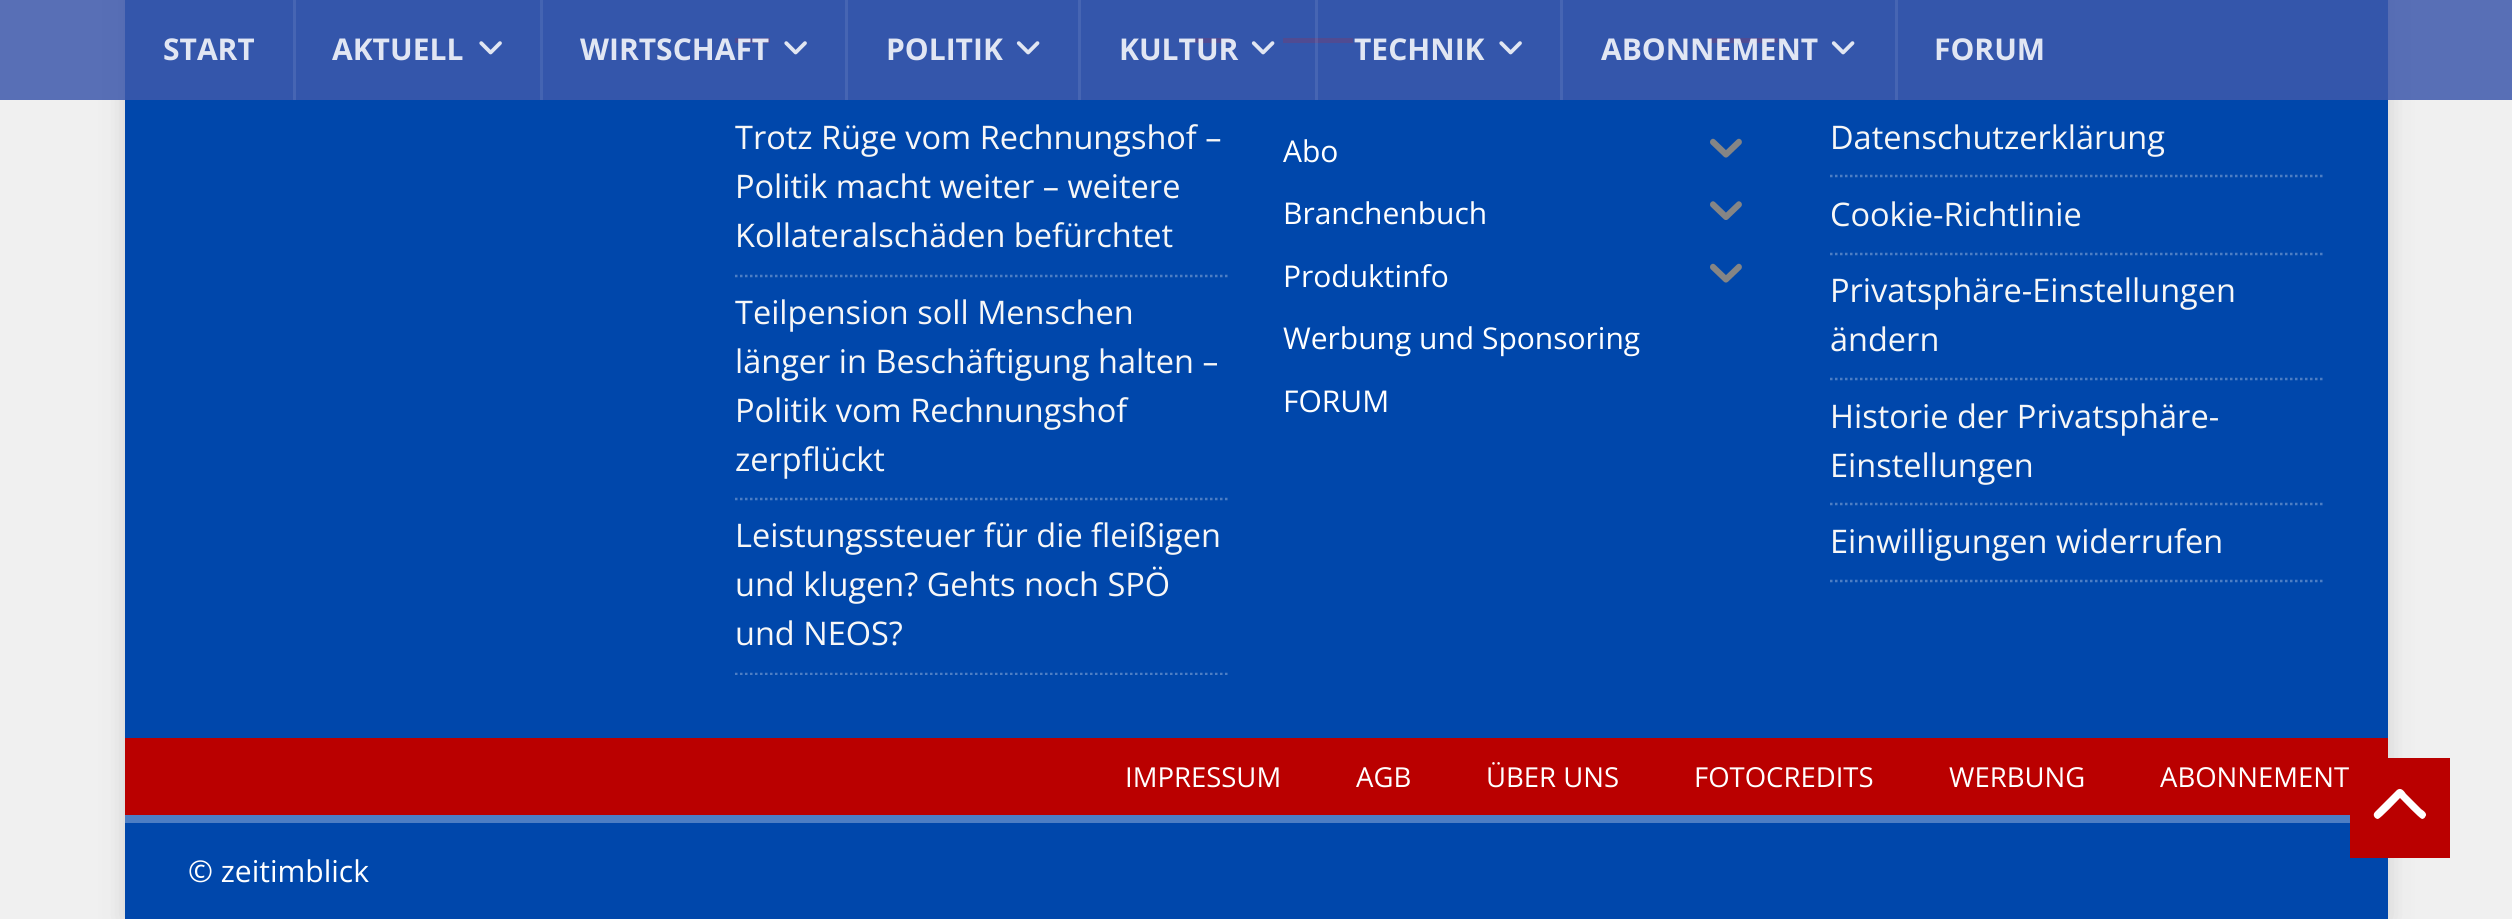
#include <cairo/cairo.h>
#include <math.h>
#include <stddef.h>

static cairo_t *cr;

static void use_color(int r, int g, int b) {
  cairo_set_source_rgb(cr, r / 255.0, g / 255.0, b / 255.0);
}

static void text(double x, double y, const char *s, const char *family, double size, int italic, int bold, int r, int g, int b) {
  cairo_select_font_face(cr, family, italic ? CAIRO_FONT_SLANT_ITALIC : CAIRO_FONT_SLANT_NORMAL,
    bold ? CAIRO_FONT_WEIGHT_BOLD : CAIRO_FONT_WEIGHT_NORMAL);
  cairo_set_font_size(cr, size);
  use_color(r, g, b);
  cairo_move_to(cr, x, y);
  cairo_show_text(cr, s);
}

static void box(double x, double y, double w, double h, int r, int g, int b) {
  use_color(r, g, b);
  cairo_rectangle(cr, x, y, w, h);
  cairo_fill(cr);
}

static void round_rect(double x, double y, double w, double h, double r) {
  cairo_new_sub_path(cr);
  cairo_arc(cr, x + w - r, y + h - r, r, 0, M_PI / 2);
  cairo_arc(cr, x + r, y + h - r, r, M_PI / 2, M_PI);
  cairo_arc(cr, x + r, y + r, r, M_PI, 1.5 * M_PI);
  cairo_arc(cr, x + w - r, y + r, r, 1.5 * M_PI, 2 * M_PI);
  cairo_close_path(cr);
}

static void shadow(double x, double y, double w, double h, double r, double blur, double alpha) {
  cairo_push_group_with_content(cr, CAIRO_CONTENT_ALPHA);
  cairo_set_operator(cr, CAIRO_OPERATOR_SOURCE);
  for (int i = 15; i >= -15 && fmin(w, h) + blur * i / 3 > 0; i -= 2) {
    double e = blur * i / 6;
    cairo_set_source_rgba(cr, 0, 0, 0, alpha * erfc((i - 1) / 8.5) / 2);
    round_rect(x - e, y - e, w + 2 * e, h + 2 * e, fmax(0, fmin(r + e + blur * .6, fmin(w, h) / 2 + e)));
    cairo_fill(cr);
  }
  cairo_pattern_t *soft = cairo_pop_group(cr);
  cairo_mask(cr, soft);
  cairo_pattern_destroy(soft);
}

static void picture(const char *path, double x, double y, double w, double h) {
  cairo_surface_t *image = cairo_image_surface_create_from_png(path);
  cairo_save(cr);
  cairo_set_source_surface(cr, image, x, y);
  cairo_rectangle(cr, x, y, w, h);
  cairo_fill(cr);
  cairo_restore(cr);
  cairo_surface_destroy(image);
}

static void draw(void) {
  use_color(240, 240, 240);
  cairo_paint(cr);
  use_color(50, 50, 50);
  shadow(125, -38, 2263, 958, 0, 12.5, 0.17);
  box(125, 0, 2263, 738, 0, 71, 171);
  box(735, 38, 495, 5, 186, 0, 0);
  box(770, 38, 425, 5, 0, 71, 171);
  box(1283, 38, 495, 5, 186, 0, 0);
  box(1353, 38, 355, 5, 0, 71, 171);
  cairo_set_source_rgba(cr, 0.239, 0.349, 0.671, 0.85);
  cairo_rectangle(cr, 0, 0, 2512, 100);
  cairo_fill(cr);
  cairo_set_source_rgba(cr, 1, 1, 1, 0.09);
  cairo_rectangle(cr, 293, 0, 3, 100);
  cairo_fill(cr);
  picture("img_01.png", 479, 41, 23, 14);
  box(540, 0, 3, 100, 68, 100, 178);
  picture("img_02.png", 784, 41, 23, 14);
  cairo_set_source_rgba(cr, 1, 1, 1, 0.09);
  cairo_rectangle(cr, 845, 0, 3, 100);
  cairo_fill(cr);
  picture("img_03.png", 1016, 41, 24, 14);
  cairo_rectangle(cr, 1078, 0, 3, 100);
  cairo_fill(cr);
  picture("img_04.png", 1251, 41, 24, 14);
  cairo_rectangle(cr, 1315, 0, 3, 100);
  cairo_fill(cr);
  picture("img_05.png", 1499, 41, 23, 14);
  cairo_rectangle(cr, 1560, 0, 3, 100);
  cairo_fill(cr);
  picture("img_04.png", 1831, 41, 24, 14);
  cairo_rectangle(cr, 1895, 0, 3, 100);
  cairo_fill(cr);
  cairo_new_path(cr);
  cairo_move_to(cr, 735, 276);
  cairo_line_to(cr, 1230, 276);
  use_color(77, 126, 196);
  cairo_set_line_width(cr, 2.5);
  cairo_set_dash(cr, (double[]){2.5, 2.5}, 2, 0);
  cairo_stroke(cr);
  cairo_new_path(cr);
  cairo_move_to(cr, 735, 499);
  cairo_line_to(cr, 1230, 499);
  cairo_stroke(cr);
  cairo_save(cr);
  cairo_rectangle(cr, 735, 13, 495, 662);
  cairo_clip(cr);
  cairo_new_path(cr);
  cairo_move_to(cr, 735, 674);
  cairo_line_to(cr, 1230, 674);
  cairo_stroke(cr);
  cairo_restore(cr);
  picture("img_06.png", 1710, 138, 32, 20);
  picture("img_07.png", 1710, 201, 32, 19);
  picture("img_06.png", 1710, 263, 32, 20);
  cairo_new_path(cr);
  cairo_move_to(cr, 1830, 176);
  cairo_line_to(cr, 2325, 176);
  cairo_stroke(cr);
  cairo_new_path(cr);
  cairo_move_to(cr, 1830, 254);
  cairo_line_to(cr, 2325, 254);
  cairo_stroke(cr);
  cairo_new_path(cr);
  cairo_move_to(cr, 1830, 379);
  cairo_line_to(cr, 2325, 379);
  cairo_stroke(cr);
  cairo_new_path(cr);
  cairo_move_to(cr, 1830, 504);
  cairo_line_to(cr, 2325, 504);
  cairo_stroke(cr);
  cairo_new_path(cr);
  cairo_move_to(cr, 1830, 581);
  cairo_line_to(cr, 2325, 581);
  cairo_stroke(cr);
  box(125, 738, 2263, 77, 186, 0, 0);
  box(125, 823, 2263, 96, 0, 71, 171);
  box(125, 815, 2225, 8, 77, 126, 196);
  box(2350, 758, 100, 100, 186, 0, 0);
  use_color(255, 255, 255);
  cairo_new_path(cr);
  cairo_move_to(cr, 2397, 790);
  cairo_curve_to(cr, 2401, 787, 2404, 791, 2406, 794);
  cairo_line_to(cr, 2421, 809);
  cairo_curve_to(cr, 2424, 811, 2428, 814, 2425, 817);
  cairo_curve_to(cr, 2425, 818, 2423, 819, 2422, 819);
  cairo_curve_to(cr, 2419, 818, 2403, 801, 2400, 798);
  cairo_curve_to(cr, 2397, 801, 2381, 818, 2378, 819);
  cairo_curve_to(cr, 2375, 819, 2372, 815, 2375, 812);
  cairo_close_path(cr);
  cairo_fill(cr);
  text(163, 60, "START", "Open Sans", 30, 0, 1, 225, 230, 243);
  text(332, 60, "AKTUELL", "Open Sans", 30, 0, 1, 225, 230, 243);
  text(580, 60, "WIRTSCHAFT", "Open Sans", 30, 0, 1, 225, 230, 243);
  text(886, 60, "POLITIK", "Open Sans", 30, 0, 1, 225, 230, 243);
  text(1119, 60, "KULTUR", "Open Sans", 30, 0, 1, 225, 230, 243);
  text(1354, 60, "TECHNIK", "Open Sans", 30, 0, 1, 225, 230, 243);
  text(1601, 60, "ABONNEMENT", "Open Sans", 30, 0, 1, 225, 230, 243);
  text(1934, 60, "FORUM", "Open Sans", 30, 0, 1, 225, 230, 243);
  text(735, 149, "Trotz Rüge vom Rechnungshof –", "Open Sans", 32.5, 0, 0, 247, 247, 247);
  text(735, 198, "Politik macht weiter – weitere", "Open Sans", 32.5, 0, 0, 247, 247, 247);
  text(735, 247, "Kollateralschäden befürchtet", "Open Sans", 32.5, 0, 0, 247, 247, 247);
  text(735, 324, "Teilpension soll Menschen", "Open Sans", 32.5, 0, 0, 247, 247, 247);
  text(735, 373, "länger in Beschäftigung halten –", "Open Sans", 32.5, 0, 0, 247, 247, 247);
  text(735, 422, "Politik vom Rechnungshof", "Open Sans", 32.5, 0, 0, 247, 247, 247);
  text(735, 471, "zerpflückt", "Open Sans", 32.5, 0, 0, 247, 247, 247);
  text(735, 547, "Leistungssteuer für die fleißigen", "Open Sans", 32.5, 0, 0, 247, 247, 247);
  text(735, 596, "und klugen? Gehts noch SPÖ", "Open Sans", 32.5, 0, 0, 247, 247, 247);
  text(735, 645, "und NEOS?", "Open Sans", 32.5, 0, 0, 247, 247, 247);
  text(1283, 162, "Abo", "Open Sans", 30, 0, 0, 255, 255, 255);
  text(1283, 224, "Branchenbuch", "Open Sans", 30, 0, 0, 255, 255, 255);
  text(1283, 287, "Produktinfo", "Open Sans", 30, 0, 0, 255, 255, 255);
  text(1283, 349, "Werbung und Sponsoring", "Open Sans", 30, 0, 0, 255, 255, 255);
  text(1283, 412, "FORUM", "Open Sans", 30, 0, 0, 255, 255, 255);
  text(1830, 149, "Datenschutzerklärung", "Open Sans", 32.5, 0, 0, 247, 247, 247);
  text(1830, 226, "Cookie-Richtlinie", "Open Sans", 32.5, 0, 0, 247, 247, 247);
  text(1830, 302, "Privatsphäre-Einstellungen", "Open Sans", 32.5, 0, 0, 247, 247, 247);
  text(1830, 351, "ändern", "Open Sans", 32.5, 0, 0, 247, 247, 247);
  text(1830, 428, "Historie der Privatsphäre-", "Open Sans", 32.5, 0, 0, 247, 247, 247);
  text(1830, 477, "Einstellungen", "Open Sans", 32.5, 0, 0, 247, 247, 247);
  text(1830, 553, "Einwilligungen widerrufen", "Open Sans", 32.5, 0, 0, 247, 247, 247);
  text(1125, 787, "IMPRESSUM", "Open Sans", 27.5, 0, 0, 255, 255, 255);
  text(1356, 787, "AGB", "Open Sans", 27.5, 0, 0, 255, 255, 255);
  text(1486, 787, "ÜBER UNS", "Open Sans", 27.5, 0, 0, 255, 255, 255);
  text(1694, 787, "FOTOCREDITS", "Open Sans", 27.5, 0, 0, 255, 255, 255);
  text(1949, 787, "WERBUNG", "Open Sans", 27.5, 0, 0, 255, 255, 255);
  text(2160, 787, "ABONNEMENT", "Open Sans", 27.5, 0, 0, 255, 255, 255);
  text(188, 882, "© zeitimblick", "Open Sans", 30, 0, 0, 255, 255, 255);
}

int main(void) {
  cairo_surface_t *surface = cairo_image_surface_create(CAIRO_FORMAT_RGB24, 2512, 919);
  cr = cairo_create(surface);
  cairo_font_options_t *options = cairo_font_options_create();
  cairo_font_options_set_hint_metrics(options, CAIRO_HINT_METRICS_OFF);
  cairo_font_options_set_hint_style(options, CAIRO_HINT_STYLE_NONE);
  cairo_set_font_options(cr, options);
  cairo_set_miter_limit(cr, 4);
  draw();
  cairo_surface_write_to_png(surface, "out.png");
  cairo_font_options_destroy(options);
  cairo_destroy(cr);
  cairo_surface_destroy(surface);
  return 0;
}
